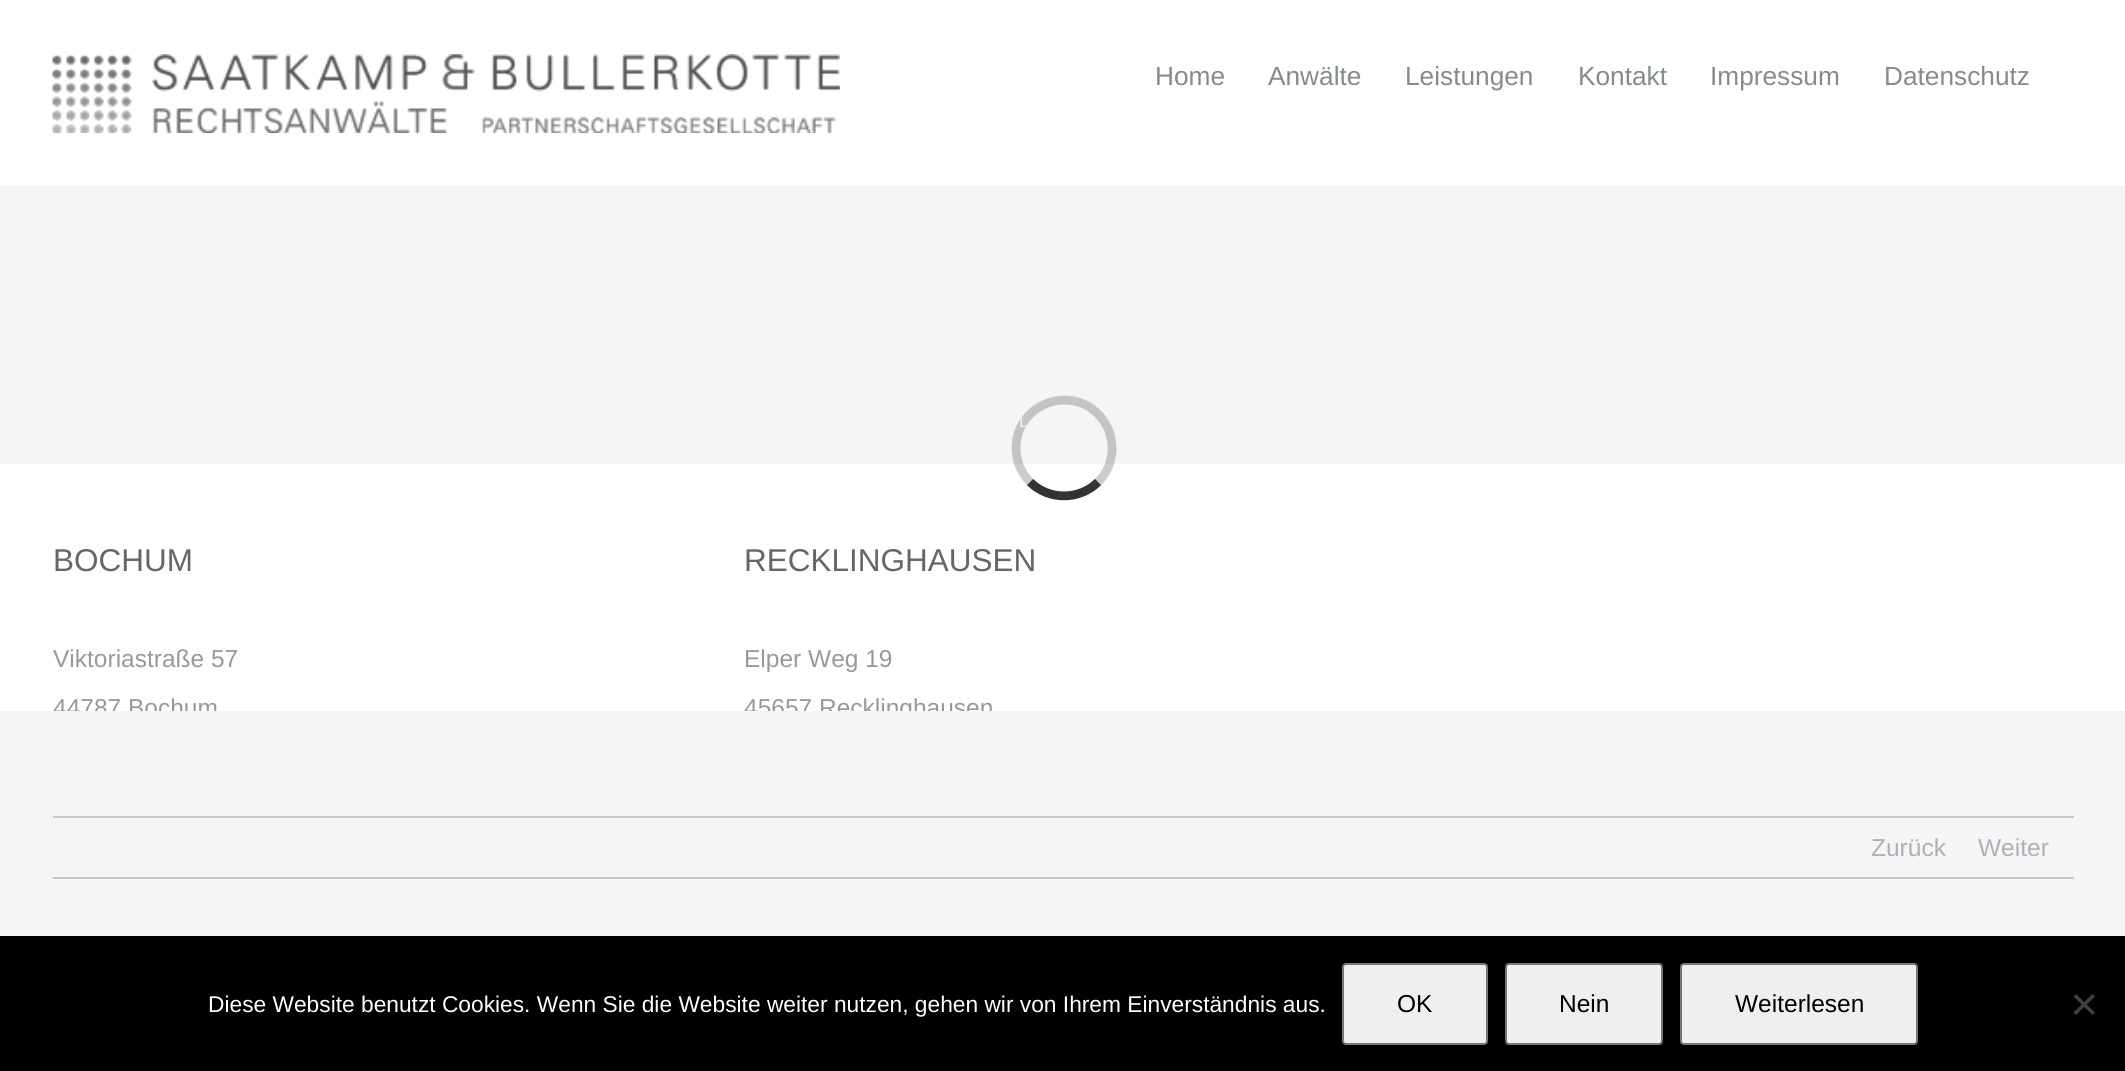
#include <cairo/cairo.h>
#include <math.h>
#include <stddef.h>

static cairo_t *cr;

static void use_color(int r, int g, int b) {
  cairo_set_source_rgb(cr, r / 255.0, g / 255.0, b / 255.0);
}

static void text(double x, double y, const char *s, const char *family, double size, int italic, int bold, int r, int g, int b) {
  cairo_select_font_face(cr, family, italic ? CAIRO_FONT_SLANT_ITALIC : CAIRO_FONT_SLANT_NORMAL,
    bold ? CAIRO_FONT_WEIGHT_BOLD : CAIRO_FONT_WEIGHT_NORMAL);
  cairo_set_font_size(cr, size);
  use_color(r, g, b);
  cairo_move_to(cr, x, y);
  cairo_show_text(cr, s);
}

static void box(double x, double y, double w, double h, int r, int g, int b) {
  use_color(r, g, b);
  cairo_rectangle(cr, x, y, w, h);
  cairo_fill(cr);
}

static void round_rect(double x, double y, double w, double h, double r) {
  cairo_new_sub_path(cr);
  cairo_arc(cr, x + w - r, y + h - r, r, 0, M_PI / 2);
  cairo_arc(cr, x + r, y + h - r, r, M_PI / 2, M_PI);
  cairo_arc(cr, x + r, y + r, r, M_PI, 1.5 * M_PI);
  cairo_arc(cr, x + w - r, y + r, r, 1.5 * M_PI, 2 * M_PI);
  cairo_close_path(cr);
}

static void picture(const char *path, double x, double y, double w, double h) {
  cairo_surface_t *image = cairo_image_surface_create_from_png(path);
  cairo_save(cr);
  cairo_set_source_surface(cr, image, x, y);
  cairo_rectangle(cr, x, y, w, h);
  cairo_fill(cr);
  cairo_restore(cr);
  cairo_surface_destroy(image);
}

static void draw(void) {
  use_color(245, 245, 245);
  cairo_paint(cr);
  box(0, 0, 2125, 186, 255, 255, 255);
  picture("img_01.png", 52, 54, 788, 79);
  box(0, 464, 2125, 247, 255, 255, 255);
  cairo_new_path(cr);
  cairo_move_to(cr, 1098, 482);
  cairo_curve_to(cr, 1079.5, 500.5, 1048.5, 500.5, 1030, 482);
  use_color(51, 51, 51);
  cairo_set_line_width(cr, 8.8);
  cairo_stroke(cr);
  cairo_new_path(cr);
  cairo_move_to(cr, 1030, 482);
  cairo_curve_to(cr, 1021, 473, 1016, 460.5, 1016, 448);
  cairo_curve_to(cr, 1016, 405.5, 1068, 384, 1098, 414);
  cairo_curve_to(cr, 1104.5, 420.5, 1109.5, 429.5, 1111, 438.5);
  cairo_curve_to(cr, 1114.5, 454, 1109.5, 471, 1098, 482);
  cairo_set_source_rgba(cr, 0, 0, 0, 0.2);
  cairo_stroke(cr);
  box(53, 816, 2021, 2, 205, 195, 205);
  box(53, 877, 2021, 2, 205, 195, 205);
  box(0, 936, 2125, 135, 0, 0, 0);
  use_color(239, 239, 239);
  round_rect(1343, 964, 144, 80, 3);
  cairo_fill_preserve(cr);
  use_color(118, 118, 118);
  cairo_set_line_width(cr, 2);
  cairo_stroke(cr);
  use_color(239, 239, 239);
  round_rect(1506, 964, 156, 80, 3);
  cairo_fill_preserve(cr);
  use_color(118, 118, 118);
  cairo_stroke(cr);
  use_color(239, 239, 239);
  round_rect(1681, 964, 236, 80, 3);
  cairo_fill_preserve(cr);
  use_color(118, 118, 118);
  cairo_stroke(cr);
  use_color(64, 64, 64);
  cairo_new_path(cr);
  cairo_move_to(cr, 2092.5, 994);
  cairo_line_to(cr, 2095, 996.5);
  cairo_line_to(cr, 2076, 1015);
  cairo_line_to(cr, 2073.5, 1012.5);
  cairo_close_path(cr);
  cairo_fill(cr);
  cairo_new_path(cr);
  cairo_move_to(cr, 2073.5, 996.5);
  cairo_line_to(cr, 2076, 994);
  cairo_line_to(cr, 2095, 1012.5);
  cairo_line_to(cr, 2092.5, 1015);
  cairo_close_path(cr);
  cairo_fill(cr);
  text(1155, 85, "Home", "Liberation Sans", 26.25, 0, 0, 132, 139, 142);
  text(1268, 85, "Anwälte", "Liberation Sans", 26.25, 0, 0, 132, 139, 142);
  text(1405, 85, "Leistungen", "Liberation Sans", 26.25, 0, 0, 132, 139, 142);
  text(1578, 85, "Kontakt", "Liberation Sans", 26.25, 0, 0, 132, 139, 142);
  text(1710, 85, "Impressum", "Liberation Sans", 26.25, 0, 0, 132, 139, 142);
  text(1884, 85, "Datenschutz", "Liberation Sans", 26.25, 0, 0, 132, 139, 142);
  text(1019, 427, "L", "Liberation Sans", 18, 0, 0, 239, 239, 239);
  text(53, 571, "BOCHUM", "Liberation Sans", 31.5, 0, 0, 102, 102, 102);
  text(53, 667, "Viktoriastraße 57", "Liberation Sans", 24.5, 0, 0, 153, 153, 153);
  text(53, 716, "44787 Bochum", "Liberation Sans", 24.5, 0, 0, 153, 153, 153);
  text(744, 571, "RECKLINGHAUSEN", "Liberation Sans", 31.5, 0, 0, 102, 102, 102);
  text(744, 667, "Elper Weg 19", "Liberation Sans", 24.5, 0, 0, 153, 153, 153);
  text(744, 716, "45657 Recklinghausen", "Liberation Sans", 24.5, 0, 0, 153, 153, 153);
  box(53, 711, 939, 11, 245, 245, 245);
  text(1871, 856, "Zurück", "Liberation Sans", 24.5, 0, 0, 177, 173, 186);
  text(1978, 856, "Weiter", "Liberation Sans", 24.5, 0, 0, 177, 173, 186);
  text(208, 1012, "Diese Website benutzt Cookies. Wenn Sie die Website weiter nutzen, gehen wir von Ihrem Einverständnis aus.", "Liberation Sans", 22.75, 0, 0, 255, 255, 255);
  text(1397, 1012, "OK", "Liberation Sans", 24.5, 0, 0, 0, 0, 0);
  text(1559, 1012, "Nein", "Liberation Sans", 24.5, 0, 0, 0, 0, 0);
  text(1735, 1012, "Weiterlesen", "Liberation Sans", 24.5, 0, 0, 0, 0, 0);
}

int main(void) {
  cairo_surface_t *surface = cairo_image_surface_create(CAIRO_FORMAT_RGB24, 2125, 1071);
  cr = cairo_create(surface);
  cairo_font_options_t *options = cairo_font_options_create();
  cairo_font_options_set_hint_metrics(options, CAIRO_HINT_METRICS_OFF);
  cairo_font_options_set_hint_style(options, CAIRO_HINT_STYLE_NONE);
  cairo_set_font_options(cr, options);
  cairo_set_miter_limit(cr, 4);
  draw();
  cairo_surface_write_to_png(surface, "out.png");
  cairo_font_options_destroy(options);
  cairo_destroy(cr);
  cairo_surface_destroy(surface);
  return 0;
}
